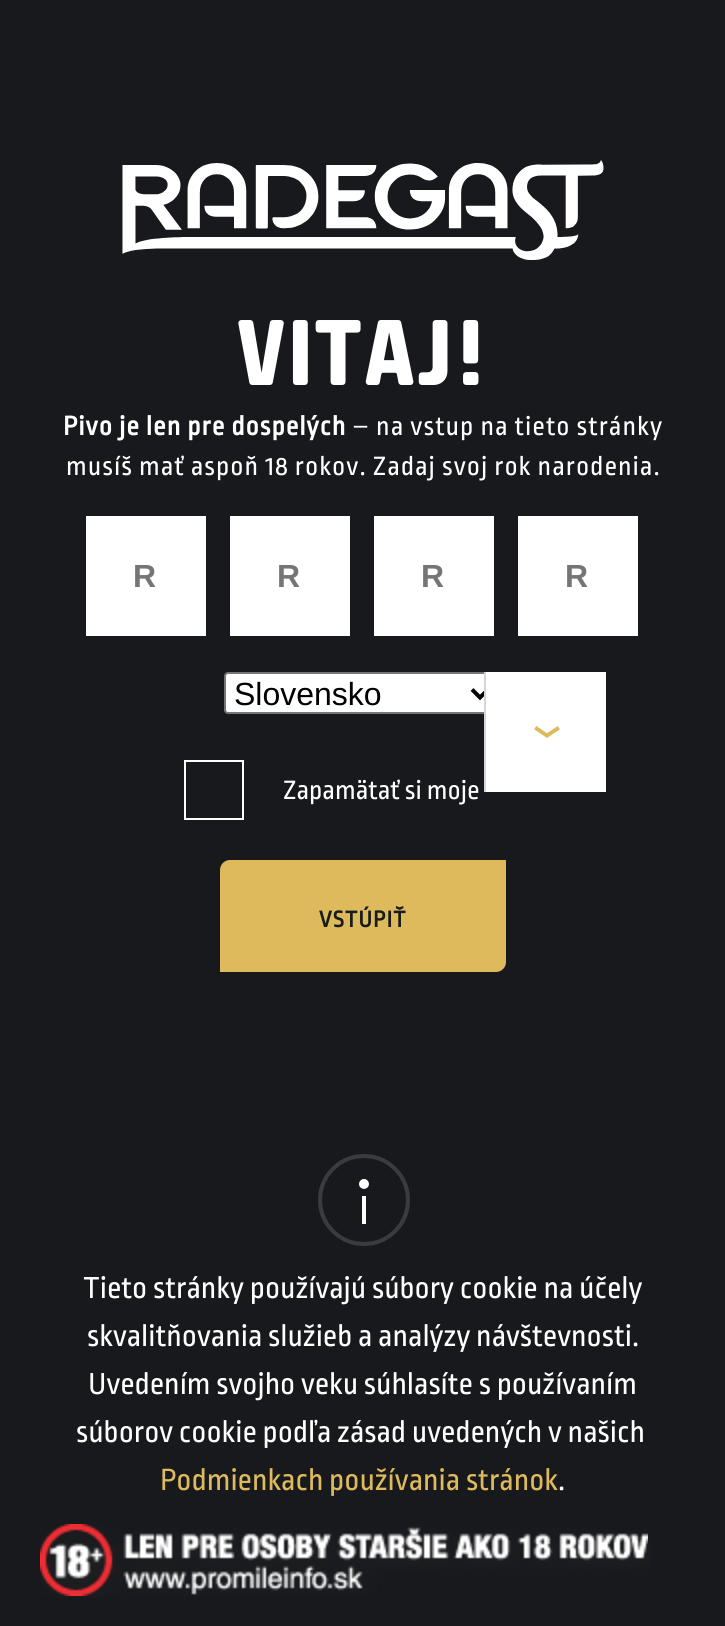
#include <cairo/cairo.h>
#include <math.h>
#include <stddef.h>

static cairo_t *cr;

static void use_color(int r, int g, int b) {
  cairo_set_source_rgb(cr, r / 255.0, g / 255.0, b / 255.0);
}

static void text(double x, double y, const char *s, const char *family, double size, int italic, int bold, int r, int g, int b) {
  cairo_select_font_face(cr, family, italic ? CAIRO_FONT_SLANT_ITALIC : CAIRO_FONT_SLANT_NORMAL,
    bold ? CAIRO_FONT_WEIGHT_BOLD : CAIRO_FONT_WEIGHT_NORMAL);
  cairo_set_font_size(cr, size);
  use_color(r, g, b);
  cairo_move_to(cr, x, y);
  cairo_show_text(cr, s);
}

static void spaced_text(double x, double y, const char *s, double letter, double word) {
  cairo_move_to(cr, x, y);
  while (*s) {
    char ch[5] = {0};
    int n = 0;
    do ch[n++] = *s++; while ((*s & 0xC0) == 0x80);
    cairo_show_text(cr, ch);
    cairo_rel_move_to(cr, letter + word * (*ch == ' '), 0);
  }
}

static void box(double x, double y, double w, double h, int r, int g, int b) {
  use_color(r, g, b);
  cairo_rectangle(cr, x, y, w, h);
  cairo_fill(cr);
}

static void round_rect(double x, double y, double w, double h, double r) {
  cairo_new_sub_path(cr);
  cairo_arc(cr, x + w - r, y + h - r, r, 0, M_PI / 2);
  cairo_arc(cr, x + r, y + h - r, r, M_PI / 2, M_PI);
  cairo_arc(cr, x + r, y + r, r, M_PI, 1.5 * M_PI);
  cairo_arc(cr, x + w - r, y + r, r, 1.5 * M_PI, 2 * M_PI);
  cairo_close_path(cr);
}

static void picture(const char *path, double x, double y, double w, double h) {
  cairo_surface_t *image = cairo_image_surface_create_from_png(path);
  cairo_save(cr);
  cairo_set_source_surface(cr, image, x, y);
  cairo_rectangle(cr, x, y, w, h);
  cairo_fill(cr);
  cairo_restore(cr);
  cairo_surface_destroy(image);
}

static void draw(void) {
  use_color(23, 25, 29);
  cairo_paint(cr);
  picture("img_01.png", 122, 160, 482, 100);
  box(86, 516, 120, 120, 255, 255, 255);
  box(230, 516, 120, 120, 255, 255, 255);
  box(374, 516, 120, 120, 255, 255, 255);
  box(518, 516, 120, 120, 255, 255, 255);
  round_rect(225, 673, 272, 40, 3);
  cairo_fill_preserve(cr);
  use_color(118, 118, 118);
  cairo_stroke(cr);
  cairo_new_path(cr);
  cairo_move_to(cr, 472, 689.5);
  cairo_line_to(cr, 480, 697.5);
  cairo_line_to(cr, 488, 689.5);
  use_color(0, 0, 0);
  cairo_set_line_width(cr, 4);
  cairo_stroke(cr);
  box(486, 672, 120, 120, 255, 255, 255);
  box(484, 672, 2, 120, 212, 213, 214);
  picture("img_02.png", 534, 726, 26, 12);
  cairo_rectangle(cr, 185, 761, 58, 58);
  use_color(255, 255, 255);
  cairo_set_line_width(cr, 2);
  cairo_stroke(cr);
  use_color(222, 186, 92);
  cairo_new_path(cr);
  cairo_move_to(cr, 230, 860);
  cairo_line_to(cr, 506, 860);
  cairo_line_to(cr, 506, 962);
  cairo_curve_to(cr, 506, 967.5, 501.5, 972, 496, 972);
  cairo_line_to(cr, 220, 972);
  cairo_line_to(cr, 220, 870);
  cairo_curve_to(cr, 220, 864.5, 224.5, 860, 230, 860);
  cairo_close_path(cr);
  cairo_fill(cr);
  picture("img_03.png", 318, 1154, 92, 92);
  picture("img_04.png", 40, 1524, 611, 73);
  cairo_select_font_face(cr, "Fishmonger", CAIRO_FONT_SLANT_NORMAL, CAIRO_FONT_WEIGHT_BOLD);
  cairo_set_font_size(cr, 90);
  use_color(255, 255, 255);
  spaced_text(236, 385, "VITAJ!", 2, 0);
  cairo_select_font_face(cr, "Ropa Sans", CAIRO_FONT_SLANT_NORMAL, CAIRO_FONT_WEIGHT_BOLD);
  cairo_set_font_size(cr, 28);
  spaced_text(63, 435, "Pivo je len pre dospelých", 1, 0);
  cairo_select_font_face(cr, "Ropa Sans", CAIRO_FONT_SLANT_NORMAL, CAIRO_FONT_WEIGHT_NORMAL);
  spaced_text(352, 435, "– na vstup na tieto stránky", 1, 0);
  spaced_text(66, 475, "musíš mať aspoň 18 rokov. Zadaj svoj rok narodenia.", 1, 0);
  cairo_select_font_face(cr, "Liberation Sans", CAIRO_FONT_SLANT_NORMAL, CAIRO_FONT_WEIGHT_BOLD);
  cairo_set_font_size(cr, 32);
  use_color(117, 117, 117);
  spaced_text(133, 587, "R", 1, 0);
  spaced_text(277, 587, "R", 1, 0);
  spaced_text(421, 587, "R", 1, 0);
  spaced_text(565, 587, "R", 1, 0);
  text(234, 705, "Slovensko", "Liberation Sans", 32, 0, 0, 0, 0, 0);
  text(283, 799, "Zapamätať si moje", "Ropa Sans", 28, 0, 0, 255, 255, 255);
  cairo_select_font_face(cr, "Ropa Sans", CAIRO_FONT_SLANT_NORMAL, CAIRO_FONT_WEIGHT_BOLD);
  cairo_set_font_size(cr, 24);
  use_color(23, 27, 26);
  spaced_text(319, 927, "VSTÚPIŤ", 1, 0);
  text(83, 1298, "Tieto stránky používajú súbory cookie na účely", "Ropa Sans", 32, 0, 0, 255, 255, 255);
  text(87, 1346, "skvalitňovania služieb a analýzy návštevnosti.", "Ropa Sans", 32, 0, 0, 255, 255, 255);
  text(88, 1394, "Uvedením svojho veku súhlasíte s používaním", "Ropa Sans", 32, 0, 0, 255, 255, 255);
  text(76, 1442, "súborov cookie podľa zásad uvedených v našich", "Ropa Sans", 32, 0, 0, 255, 255, 255);
  text(160, 1490, "Podmienkach používania stránok", "Ropa Sans", 32, 0, 0, 222, 186, 92);
  text(558, 1490, ".", "Ropa Sans", 32, 0, 0, 255, 255, 255);
}

int main(void) {
  cairo_surface_t *surface = cairo_image_surface_create(CAIRO_FORMAT_RGB24, 725, 1626);
  cr = cairo_create(surface);
  cairo_font_options_t *options = cairo_font_options_create();
  cairo_font_options_set_hint_metrics(options, CAIRO_HINT_METRICS_OFF);
  cairo_font_options_set_hint_style(options, CAIRO_HINT_STYLE_NONE);
  cairo_set_font_options(cr, options);
  cairo_set_miter_limit(cr, 4);
  draw();
  cairo_surface_write_to_png(surface, "out.png");
  cairo_font_options_destroy(options);
  cairo_destroy(cr);
  cairo_surface_destroy(surface);
  return 0;
}
